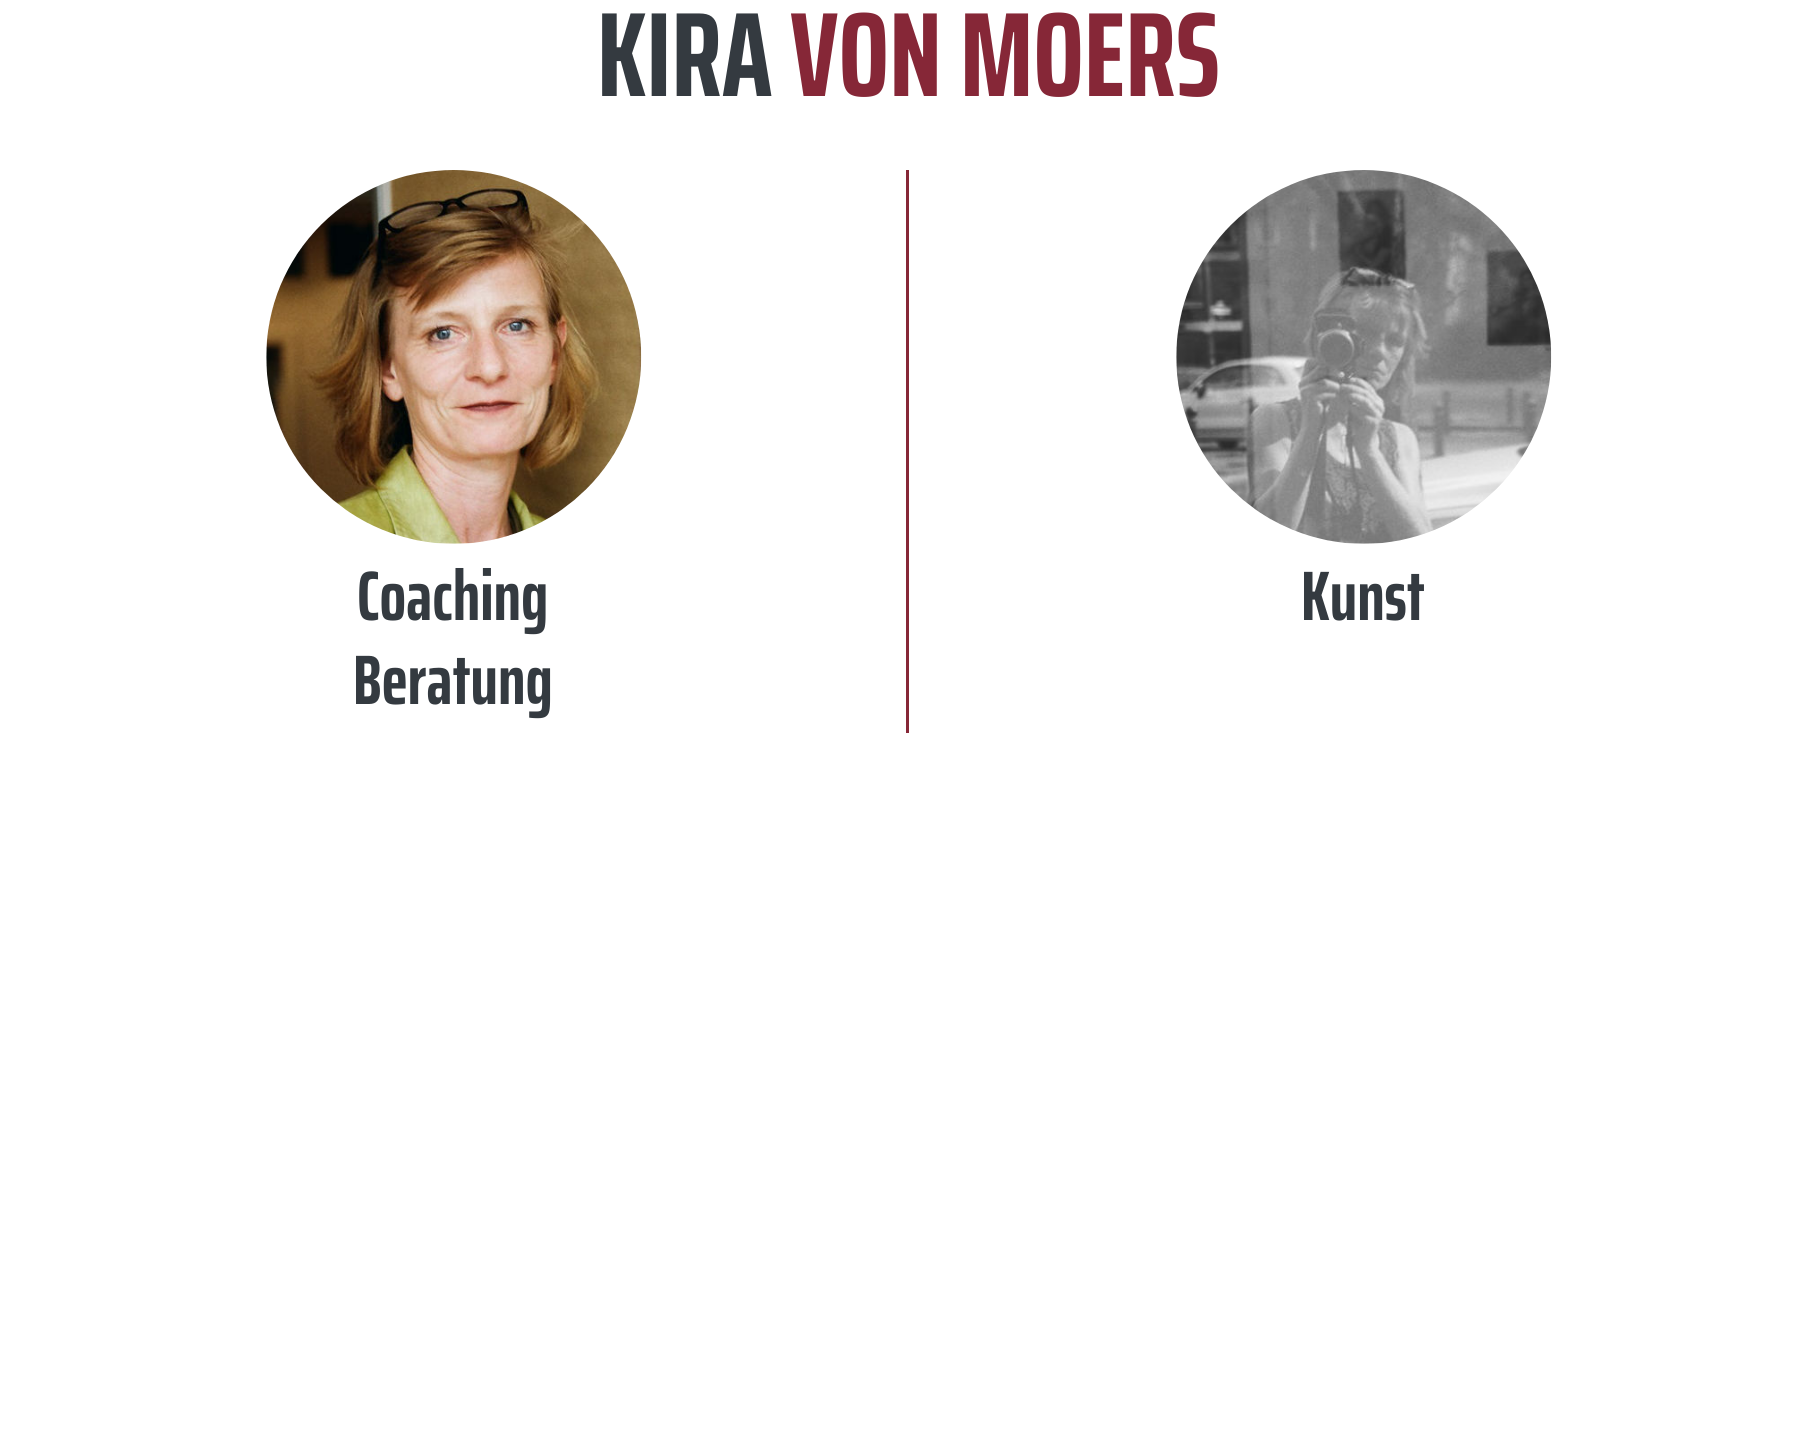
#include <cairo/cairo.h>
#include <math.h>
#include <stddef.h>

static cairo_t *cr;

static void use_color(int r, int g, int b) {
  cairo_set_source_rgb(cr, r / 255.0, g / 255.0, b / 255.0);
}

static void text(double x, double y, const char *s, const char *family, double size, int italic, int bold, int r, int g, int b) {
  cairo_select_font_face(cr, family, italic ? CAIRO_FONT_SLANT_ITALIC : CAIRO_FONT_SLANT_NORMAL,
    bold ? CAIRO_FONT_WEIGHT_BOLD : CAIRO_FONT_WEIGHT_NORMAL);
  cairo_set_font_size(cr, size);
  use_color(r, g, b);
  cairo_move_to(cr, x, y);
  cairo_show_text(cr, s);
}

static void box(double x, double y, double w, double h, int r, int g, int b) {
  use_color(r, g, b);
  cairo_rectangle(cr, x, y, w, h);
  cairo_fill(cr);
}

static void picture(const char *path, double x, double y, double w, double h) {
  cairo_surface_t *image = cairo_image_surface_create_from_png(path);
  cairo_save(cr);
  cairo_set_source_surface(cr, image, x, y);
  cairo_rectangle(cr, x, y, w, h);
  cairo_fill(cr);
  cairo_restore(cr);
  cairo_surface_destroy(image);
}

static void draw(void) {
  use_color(255, 255, 255);
  cairo_paint(cr);
  box(906, 170, 3, 563, 134, 39, 55);
  picture("img_01.png", 266, 170, 376, 374);
  picture("img_02.png", 1176, 170, 376, 374);
  text(597, 96, "KIRA", "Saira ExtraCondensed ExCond", 120, 0, 1, 52, 58, 64);
  text(790, 96, "VON MOERS", "Saira ExtraCondensed ExCond", 120, 0, 1, 134, 39, 55);
  text(357, 620, "Coaching", "Saira ExtraCondensed ExCond", 70, 0, 1, 52, 58, 64);
  text(353, 704, "Beratung", "Saira ExtraCondensed ExCond", 70, 0, 1, 52, 58, 64);
  text(1301, 620, "Kunst", "Saira ExtraCondensed ExCond", 70, 0, 1, 52, 58, 64);
}

int main(void) {
  cairo_surface_t *surface = cairo_image_surface_create(CAIRO_FORMAT_RGB24, 1817, 1455);
  cr = cairo_create(surface);
  cairo_font_options_t *options = cairo_font_options_create();
  cairo_font_options_set_hint_metrics(options, CAIRO_HINT_METRICS_OFF);
  cairo_font_options_set_hint_style(options, CAIRO_HINT_STYLE_NONE);
  cairo_set_font_options(cr, options);
  cairo_set_miter_limit(cr, 4);
  draw();
  cairo_surface_write_to_png(surface, "out.png");
  cairo_font_options_destroy(options);
  cairo_destroy(cr);
  cairo_surface_destroy(surface);
  return 0;
}
